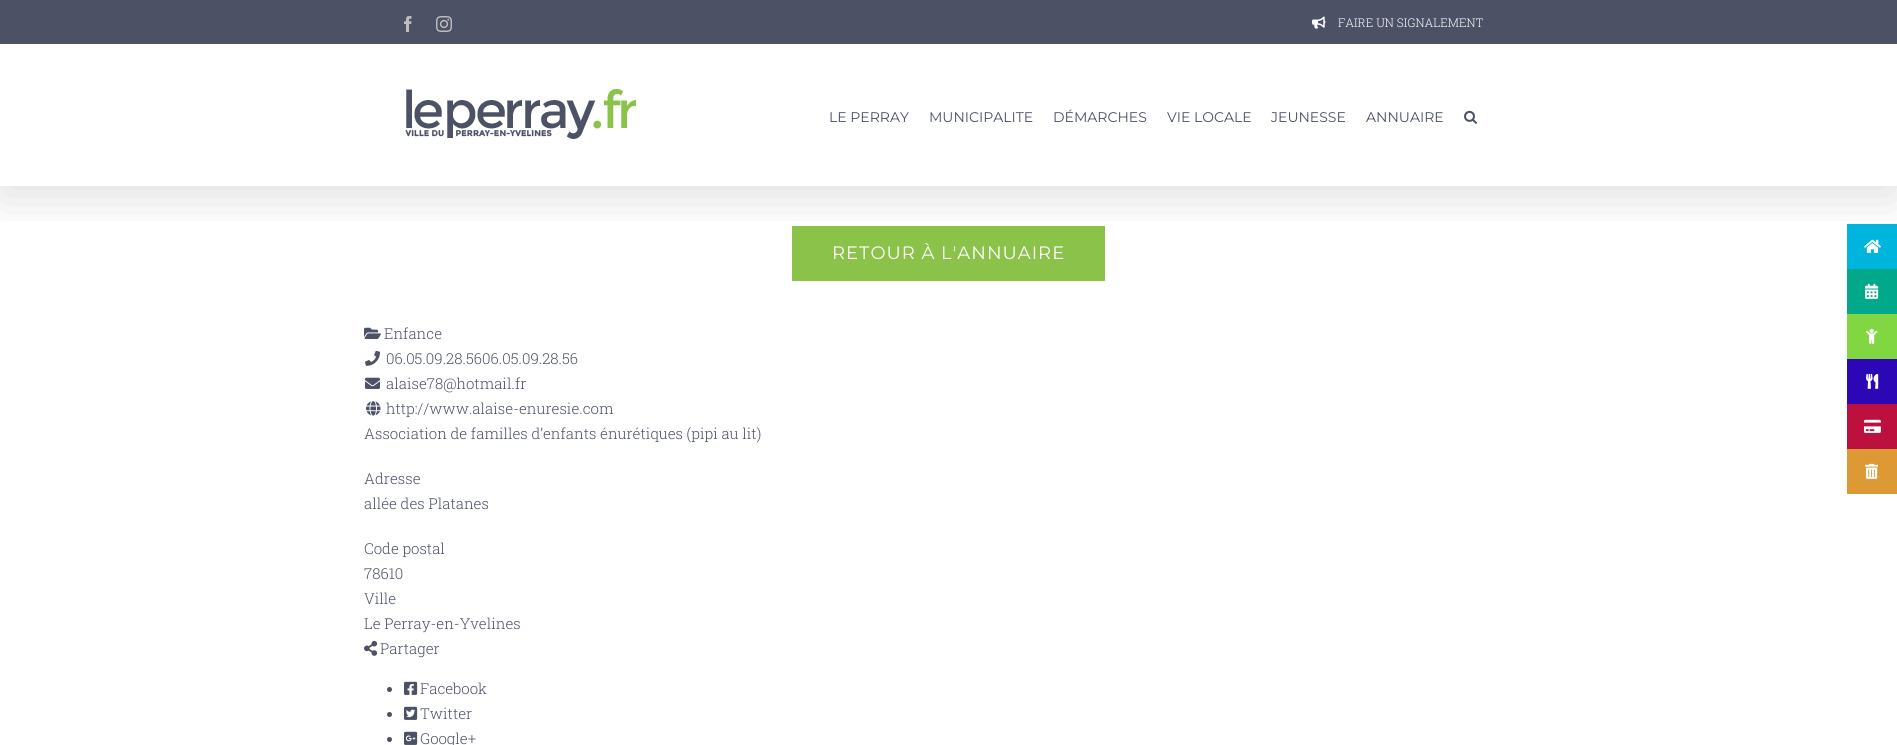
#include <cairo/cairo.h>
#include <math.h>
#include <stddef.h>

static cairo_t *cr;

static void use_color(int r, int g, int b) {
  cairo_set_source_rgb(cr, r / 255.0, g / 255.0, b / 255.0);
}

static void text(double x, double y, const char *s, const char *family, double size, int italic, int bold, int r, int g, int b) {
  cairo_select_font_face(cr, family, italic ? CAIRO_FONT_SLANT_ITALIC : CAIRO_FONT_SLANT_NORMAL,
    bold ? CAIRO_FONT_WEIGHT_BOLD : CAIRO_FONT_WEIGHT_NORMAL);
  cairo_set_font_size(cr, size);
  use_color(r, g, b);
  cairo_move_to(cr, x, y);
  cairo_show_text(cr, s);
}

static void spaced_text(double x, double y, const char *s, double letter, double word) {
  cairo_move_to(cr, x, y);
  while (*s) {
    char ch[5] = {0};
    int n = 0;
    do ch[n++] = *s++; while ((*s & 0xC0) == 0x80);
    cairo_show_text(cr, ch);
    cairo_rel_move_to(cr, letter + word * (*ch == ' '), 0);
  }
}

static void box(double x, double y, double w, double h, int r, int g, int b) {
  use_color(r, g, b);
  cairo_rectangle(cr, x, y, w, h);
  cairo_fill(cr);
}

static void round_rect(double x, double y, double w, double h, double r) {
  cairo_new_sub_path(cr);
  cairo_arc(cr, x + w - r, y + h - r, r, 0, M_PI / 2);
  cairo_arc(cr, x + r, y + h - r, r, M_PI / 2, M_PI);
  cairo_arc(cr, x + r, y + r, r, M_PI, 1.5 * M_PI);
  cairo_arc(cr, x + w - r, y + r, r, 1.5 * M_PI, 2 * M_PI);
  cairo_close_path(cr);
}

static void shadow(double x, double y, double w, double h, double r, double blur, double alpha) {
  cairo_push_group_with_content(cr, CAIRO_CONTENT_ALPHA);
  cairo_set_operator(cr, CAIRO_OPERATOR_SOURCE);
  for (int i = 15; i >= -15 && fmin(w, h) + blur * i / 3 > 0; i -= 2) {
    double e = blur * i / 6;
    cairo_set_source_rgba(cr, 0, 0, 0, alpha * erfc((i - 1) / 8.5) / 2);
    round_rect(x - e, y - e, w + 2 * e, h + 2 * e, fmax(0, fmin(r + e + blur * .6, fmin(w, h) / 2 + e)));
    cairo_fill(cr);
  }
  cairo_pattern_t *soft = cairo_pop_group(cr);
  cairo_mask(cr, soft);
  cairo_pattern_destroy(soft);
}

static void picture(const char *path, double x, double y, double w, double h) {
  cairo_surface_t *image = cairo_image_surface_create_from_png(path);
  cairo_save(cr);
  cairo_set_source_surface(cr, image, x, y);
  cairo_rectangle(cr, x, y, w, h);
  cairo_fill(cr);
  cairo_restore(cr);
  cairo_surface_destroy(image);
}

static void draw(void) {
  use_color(255, 255, 255);
  cairo_paint(cr);
  box(792, 226, 313, 55, 139, 195, 74);
  box(1847, 224, 50, 45, 0, 181, 221);
  picture("img_14.png", 1864, 239, 17, 14);
  box(1847, 269, 50, 45, 1, 168, 137);
  cairo_save(cr);
  cairo_rectangle(cr, 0, 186, 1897, 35);
  cairo_clip(cr);
  use_color(0, 0, 0);
  shadow(2, 12, 1893, 182, 0, 25, 0.14);
  cairo_restore(cr);
  box(0, 0, 1897, 44, 76, 81, 102);
  picture("img_01.png", 404, 16, 8, 16);
  picture("img_02.png", 436, 16, 16, 16);
  picture("img_03.png", 1312, 16, 14, 13);
  picture("img_04.png", 405, 89, 231, 50);
  picture("img_05.png", 1464, 110, 13, 14);
  picture("img_06.png", 364, 327, 17, 12);
  picture("img_07.png", 365, 350, 15, 16);
  picture("img_08.png", 365, 377, 15, 12);
  picture("img_09.png", 366, 401, 15, 15);
  picture("img_10.png", 364, 640, 14, 16);
  cairo_arc(cr, 389.5, 689.5, 2.5, 0, 2 * M_PI);
  cairo_fill(cr);
  picture("img_11.png", 404, 681, 14, 14);
  cairo_arc(cr, 389.5, 714.5, 2.5, 0, 2 * M_PI);
  cairo_fill(cr);
  picture("img_12.png", 404, 706, 14, 14);
  cairo_arc(cr, 389.5, 739.5, 2.5, 0, 2 * M_PI);
  cairo_fill(cr);
  picture("img_13.png", 404, 731, 14, 14);
  picture("img_15.png", 1865, 283, 14, 16);
  box(1847, 314, 50, 45, 129, 215, 66);
  picture("img_16.png", 1866, 328, 12, 16);
  box(1847, 359, 50, 45, 44, 7, 181);
  picture("img_17.png", 1866, 373, 13, 16);
  box(1847, 404, 50, 45, 188, 16, 62);
  picture("img_18.png", 1864, 419, 17, 14);
  box(1847, 449, 50, 45, 221, 153, 51);
  picture("img_19.png", 1865, 463, 14, 16);
  text(1338, 27, "FAIRE UN SIGNALEMENT", "Roboto Slab Light", 12, 0, 0, 255, 255, 255);
  text(829, 122, "LE PERRAY", "Montserrat Thin", 14, 0, 0, 76, 81, 102);
  text(929, 122, "MUNICIPALITE", "Montserrat Thin", 14, 0, 0, 76, 81, 102);
  text(1053, 122, "DÉMARCHES", "Montserrat Thin", 14, 0, 0, 76, 81, 102);
  text(1167, 122, "VIE LOCALE", "Montserrat Thin", 14, 0, 0, 76, 81, 102);
  text(1271, 122, "JEUNESSE", "Montserrat Thin", 14, 0, 0, 76, 81, 102);
  text(1366, 122, "ANNUAIRE", "Montserrat Thin", 14, 0, 0, 76, 81, 102);
  cairo_set_font_size(cr, 18);
  use_color(255, 255, 255);
  spaced_text(832, 259, "RETOUR À L'ANNUAIRE", 1, 0);
  text(384, 339, "Enfance", "Roboto Slab Light", 15, 0, 0, 76, 81, 102);
  text(386, 364, "06.05.09.28.5606.05.09.28.56", "Roboto Slab Light", 15, 0, 0, 76, 81, 102);
  text(386, 389, "alaise78@hotmail.fr", "Roboto Slab Light", 15, 0, 0, 76, 81, 102);
  text(386, 414, "http://www.alaise-enuresie.com", "Roboto Slab Light", 15, 0, 0, 76, 81, 102);
  text(364, 439, "Association de familles d’enfants énurétiques (pipi au lit)", "Roboto Slab Light", 15, 0, 0, 76, 81, 102);
  text(364, 484, "Adresse", "Roboto Slab Light", 15, 0, 0, 76, 81, 102);
  text(364, 509, "allée des Platanes", "Roboto Slab Light", 15, 0, 0, 76, 81, 102);
  text(364, 554, "Code postal", "Roboto Slab Light", 15, 0, 0, 76, 81, 102);
  text(364, 579, "78610", "Roboto Slab Light", 15, 0, 0, 76, 81, 102);
  text(364, 604, "Ville", "Roboto Slab Light", 15, 0, 0, 76, 81, 102);
  text(364, 629, "Le Perray-en-Yvelines", "Roboto Slab Light", 15, 0, 0, 76, 81, 102);
  text(380, 654, "Partager", "Roboto Slab Light", 15, 0, 0, 76, 81, 102);
  text(420, 694, "Facebook", "Roboto Slab Light", 15, 0, 0, 76, 81, 102);
  text(420, 719, "Twitter", "Roboto Slab Light", 15, 0, 0, 76, 81, 102);
  text(420, 744, "Google+", "Roboto Slab Light", 15, 0, 0, 76, 81, 102);
}

int main(void) {
  cairo_surface_t *surface = cairo_image_surface_create(CAIRO_FORMAT_RGB24, 1897, 745);
  cr = cairo_create(surface);
  cairo_font_options_t *options = cairo_font_options_create();
  cairo_font_options_set_hint_metrics(options, CAIRO_HINT_METRICS_OFF);
  cairo_font_options_set_hint_style(options, CAIRO_HINT_STYLE_NONE);
  cairo_set_font_options(cr, options);
  cairo_set_miter_limit(cr, 4);
  draw();
  cairo_surface_write_to_png(surface, "out.png");
  cairo_font_options_destroy(options);
  cairo_destroy(cr);
  cairo_surface_destroy(surface);
  return 0;
}
